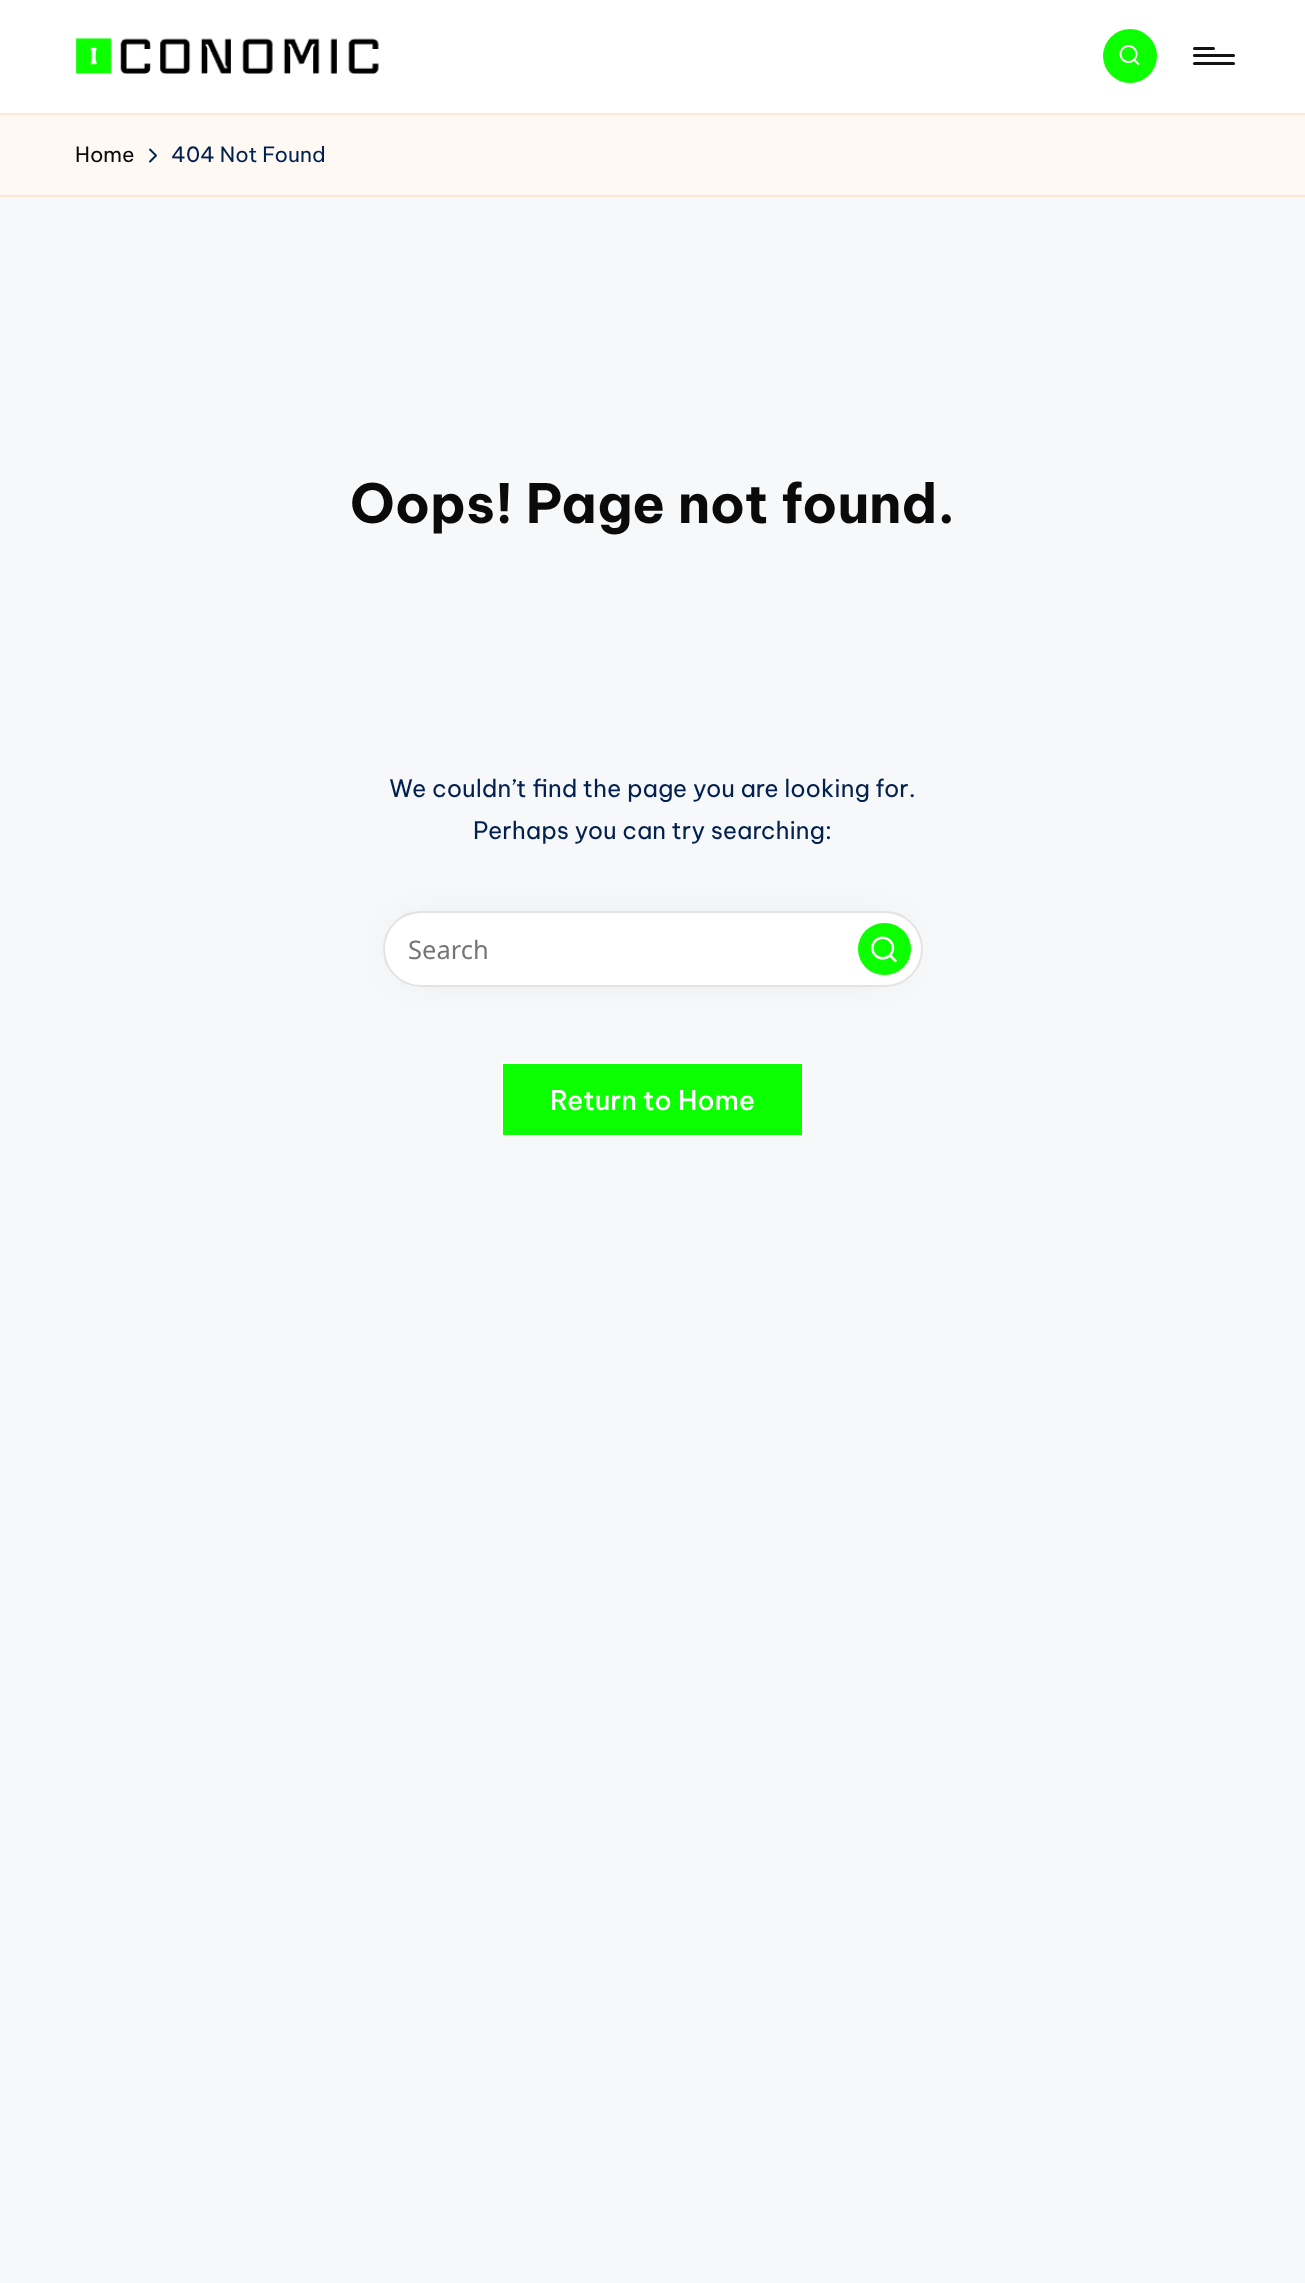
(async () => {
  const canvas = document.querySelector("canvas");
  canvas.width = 1305;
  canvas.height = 2283;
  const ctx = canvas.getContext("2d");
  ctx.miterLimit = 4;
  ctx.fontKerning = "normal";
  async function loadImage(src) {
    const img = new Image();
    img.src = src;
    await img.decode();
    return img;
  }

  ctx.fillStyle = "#f7f8f9";
  ctx.fillRect(0, 0, 1305, 2283);
  ctx.fillStyle = "#ffffff";
  ctx.fillRect(0, 0, 1305, 113);
  ctx.drawImage(await loadImage("img/1.png"), 76, 37, 303, 37);
  ctx.fillStyle = "#0cff00";
  ctx.beginPath();
  ctx.arc(1130, 56, 27, 0, Math.PI * 2);
  ctx.fill();
  ctx.drawImage(await loadImage("img/2.png"), 1119, 45, 21, 21);
  ctx.fillStyle = "#131315";
  ctx.beginPath();
  ctx.roundRect(1193, 54, 42, 3, 1.5);
  ctx.fill();
  ctx.beginPath();
  ctx.roundRect(1193, 47, 22, 3, 1.5);
  ctx.fill();
  ctx.beginPath();
  ctx.roundRect(1193, 62, 42, 3, 1.5);
  ctx.fill();
  for (const [x, y, w, h, color] of [
    [0, 115, 1305, 80, "#fff9f3"],
    [0, 113, 1305, 2, "#ffe7d2"],
    [0, 195, 1305, 2, "#ffe7d2"],
  ]) {
    ctx.fillStyle = color;
    ctx.fillRect(x, y, w, h);
  }
  ctx.drawImage(await loadImage("img/3.png"), 149, 148, 8, 15);
  ctx.fillStyle = "rgba(0, 0, 0, 0.15)";
  ctx.filter = "blur(24px)";
  ctx.beginPath();
  ctx.roundRect(402, 935, 492, 28, 14);
  ctx.fill();
  ctx.filter = "none";
  ctx.fillStyle = "#ffffff";
  ctx.beginPath();
  ctx.roundRect(383, 911, 540, 76, 38);
  ctx.fill();
  ctx.beginPath();
  ctx.roundRect(384, 912, 538, 74, 37);
  ctx.strokeStyle = "rgba(185, 185, 185, 0.4)";
  ctx.lineWidth = 2;
  ctx.stroke();
  ctx.fillStyle = "#0cff00";
  ctx.beginPath();
  ctx.roundRect(858, 923, 53, 52, 26);
  ctx.fill();
  ctx.drawImage(await loadImage("img/4.png"), 871, 936, 26, 27);
  ctx.beginPath();
  ctx.rect(502, 1063, 301, 73);
  ctx.fill();
  ctx.strokeStyle = "#ffffff";
  ctx.stroke();
  ctx.font = "21px Be Vietnam Pro";
  ctx.fillStyle = "#0a0a0a";
  ctx.fillText("Home", 75, 162);
  ctx.fillStyle = "#002050";
  ctx.fillText("404 Not Found", 171, 162);
  ctx.font = "bold 54px Be Vietnam Pro";
  ctx.fillStyle = "#0a0a0a";
  ctx.fillText("Oops! Page not found.", 350, 523);
  ctx.font = "24px Be Vietnam Pro";
  ctx.fillStyle = "#002050";
  ctx.fillText("We couldn’t find the page you are looking for.", 389, 797);
  ctx.fillText("Perhaps you can try searching:", 473, 839);
  ctx.font = "25.5px Noto Sans";
  ctx.fillStyle = "#757575";
  ctx.fillText("Search", 408, 959);
  ctx.font = "500 27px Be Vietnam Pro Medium";
  ctx.fillStyle = "#ffffff";
  ctx.fillText("Return to Home", 550, 1110);
})();
